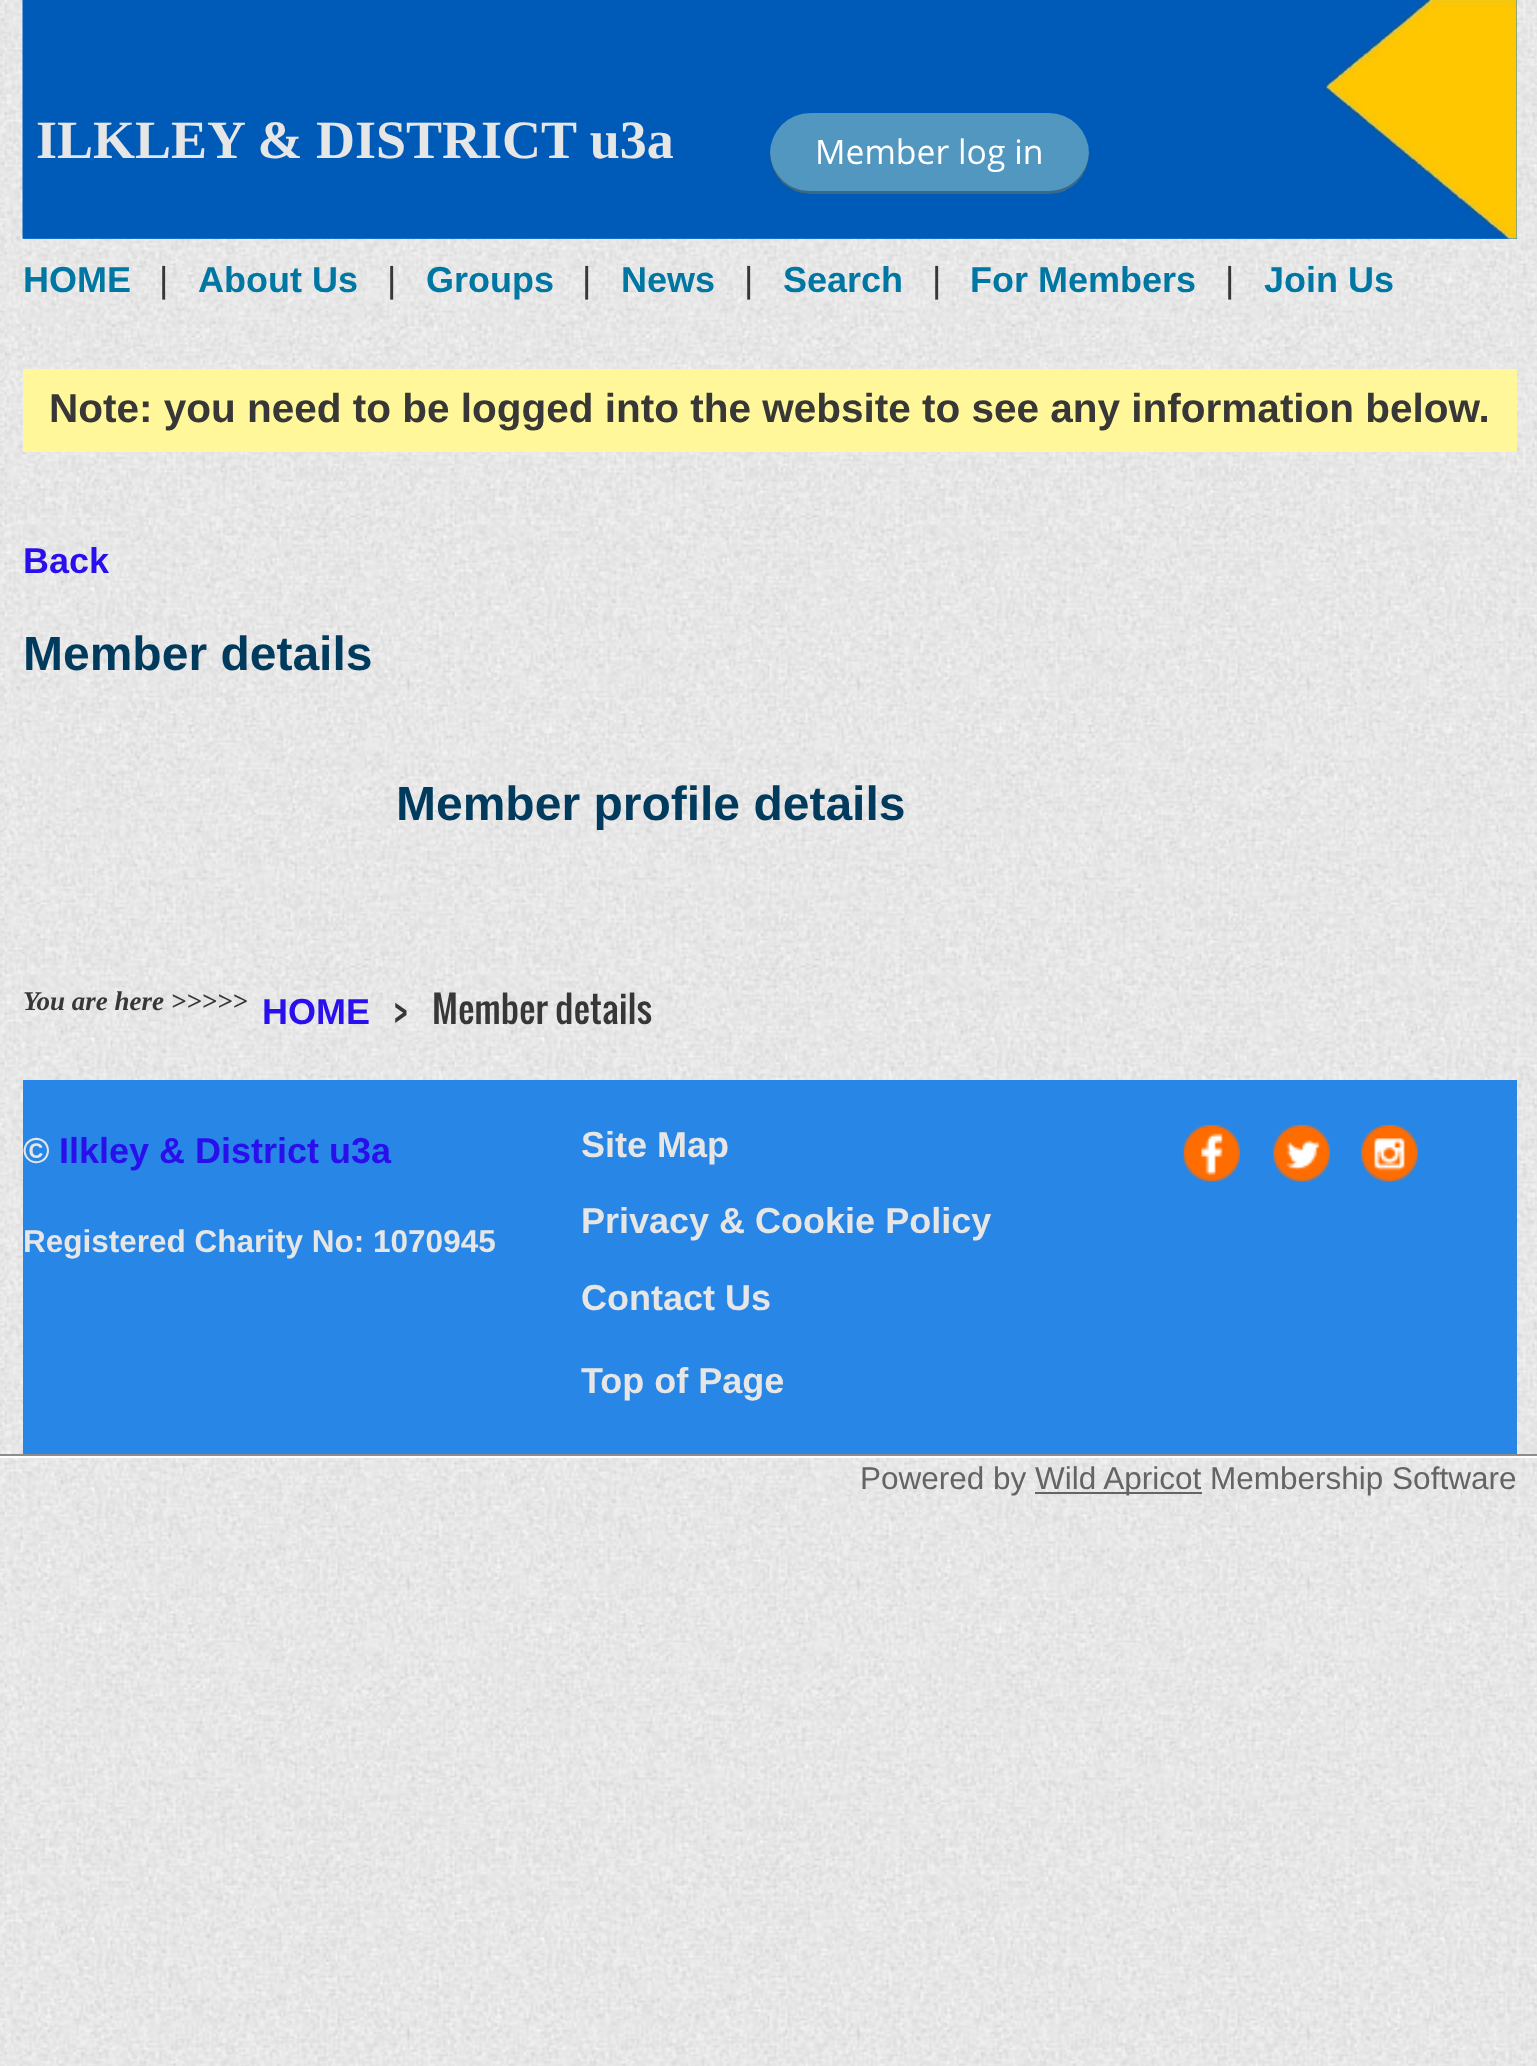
(async () => {
  const canvas = document.querySelector("canvas");
  canvas.width = 1537;
  canvas.height = 2066;
  const ctx = canvas.getContext("2d");
  ctx.miterLimit = 4;
  ctx.fontKerning = "normal";
  async function loadImage(src) {
    const img = new Image();
    img.src = src;
    await img.decode();
    return img;
  }
  let path;

  ctx.fillStyle = "#ffffff";
  ctx.fillRect(0, 0, 1537, 2066);
  ctx.drawImage(await loadImage("img/1.png"), 0, 0, 1537, 2066);
  ctx.fillStyle = "#2886e6";
  ctx.fillRect(23, 0, 1494, 239);
  ctx.drawImage(await loadImage("img/2.png"), 22, 0, 1495, 239);
  ctx.fillStyle = "#5297bf";
  ctx.beginPath();
  ctx.roundRect(770, 113, 319, 81, 40.5);
  ctx.fill();
  ctx.fillStyle = "rgba(0, 0, 0, 0.3)";
  path = new Path2D("M770 152V154C770 176 788 194 810 194H1048C1071 194 1089 176 1089 154V152C1088 174 1071 191 1048 191H810C788 191 771 174 770 152Z");
  ctx.fill(path);
  ctx.fillStyle = "#fff79a";
  ctx.fillRect(23, 369, 1494, 83);
  ctx.fillStyle = "#2886e6";
  ctx.fillRect(23, 1080, 1494, 374);
  ctx.drawImage(await loadImage("img/3.png"), 1183, 1125, 57, 57);
  ctx.drawImage(await loadImage("img/4.png"), 1273, 1125, 57, 57);
  ctx.drawImage(await loadImage("img/5.png"), 1361, 1125, 57, 57);
  for (const [x, y, w, h, color] of [
    [0, 1454, 1537, 2, "#8d8d8d"],
    [0, 1456, 1537, 2, "#ffffff"],
    [1035, 1492, 167, 2, "#646464"],
  ]) {
    ctx.fillStyle = color;
    ctx.fillRect(x, y, w, h);
  }
  ctx.font = "bold 54px Liberation Serif";
  ctx.fillStyle = "#e6e6e6";
  ctx.fillText("ILKLEY & DISTRICT u3a", 36, 158);
  ctx.font = "33.75px Open Sans";
  ctx.fillStyle = "#ffffff";
  ctx.fillText("Member log in", 815, 164);
  ctx.font = "bold 36px Liberation Sans";
  ctx.fillStyle = "#0076a3";
  ctx.fillText("HOME", 23, 292);
  ctx.font = "36px Liberation Sans";
  ctx.fillStyle = "#373737";
  ctx.fillText("|", 159, 292);
  ctx.font = "bold 36px Liberation Sans";
  ctx.fillStyle = "#0076a3";
  ctx.fillText("About Us", 198, 292);
  ctx.font = "36px Liberation Sans";
  ctx.fillStyle = "#373737";
  ctx.fillText("|", 387, 292);
  ctx.font = "bold 36px Liberation Sans";
  ctx.fillStyle = "#0076a3";
  ctx.fillText("Groups", 426, 292);
  ctx.font = "36px Liberation Sans";
  ctx.fillStyle = "#373737";
  ctx.fillText("|", 582, 292);
  ctx.font = "bold 36px Liberation Sans";
  ctx.fillStyle = "#0076a3";
  ctx.fillText("News", 621, 292);
  ctx.font = "36px Liberation Sans";
  ctx.fillStyle = "#373737";
  ctx.fillText("|", 744, 292);
  ctx.font = "bold 36px Liberation Sans";
  ctx.fillStyle = "#0076a3";
  ctx.fillText("Search", 783, 292);
  ctx.font = "36px Liberation Sans";
  ctx.fillStyle = "#373737";
  ctx.fillText("|", 932, 292);
  ctx.font = "bold 36px Liberation Sans";
  ctx.fillStyle = "#0076a3";
  ctx.fillText("For Members", 970, 292);
  ctx.font = "36px Liberation Sans";
  ctx.fillStyle = "#373737";
  ctx.fillText("|", 1225, 292);
  ctx.font = "bold 36px Liberation Sans";
  ctx.fillStyle = "#0076a3";
  ctx.fillText("Join Us", 1264, 292);
  ctx.font = "bold 40.5px Liberation Sans";
  ctx.fillStyle = "#373737";
  ctx.fillText("Note: you need to be logged into the website to see any information below.", 49, 422);
  ctx.font = "bold 36px Liberation Sans";
  ctx.fillStyle = "#290fec";
  ctx.fillText("Back", 23, 573);
  ctx.font = "bold 48px Liberation Sans";
  ctx.fillStyle = "#003a5c";
  ctx.fillText("Member details", 23, 670);
  ctx.fillText("Member profile details", 396, 820);
  ctx.font = "italic bold 27px Liberation Serif";
  ctx.fillStyle = "#373737";
  ctx.fillText("You are here >>>>>", 23, 1010);
  ctx.font = "bold 36px Liberation Sans";
  ctx.fillStyle = "#290fec";
  ctx.fillText("HOME", 262, 1024);
  ctx.font = "36px Oswald";
  ctx.fillStyle = "#373737";
  ctx.fillText(">", 393, 1024);
  ctx.fillText("Member details", 432, 1024);
  ctx.font = "bold 36px Liberation Sans";
  ctx.fillStyle = "#e6e6e6";
  ctx.fillText("©", 23, 1163);
  ctx.fillStyle = "#290fec";
  ctx.fillText("Ilkley & District u3a", 59, 1163);
  ctx.font = "bold 31.5px Liberation Sans";
  ctx.fillStyle = "#e6e6e6";
  ctx.fillText("Registered Charity No: 1070945", 23, 1252);
  ctx.font = "bold 36px Liberation Sans";
  for (const [text, x, y] of [
    ["Site Map", 581, 1157],
    ["Privacy & Cookie Policy", 581, 1233],
    ["Contact Us", 581, 1310],
    ["Top of Page", 581, 1393],
  ]) {
    ctx.fillText(text, x, y);
  }
  ctx.font = "31.5px Liberation Sans";
  ctx.fillStyle = "#646464";
  ctx.fillText("Powered by", 860, 1489);
  ctx.fillText("Wild Apricot Membership Software", 1035, 1489);
})();
